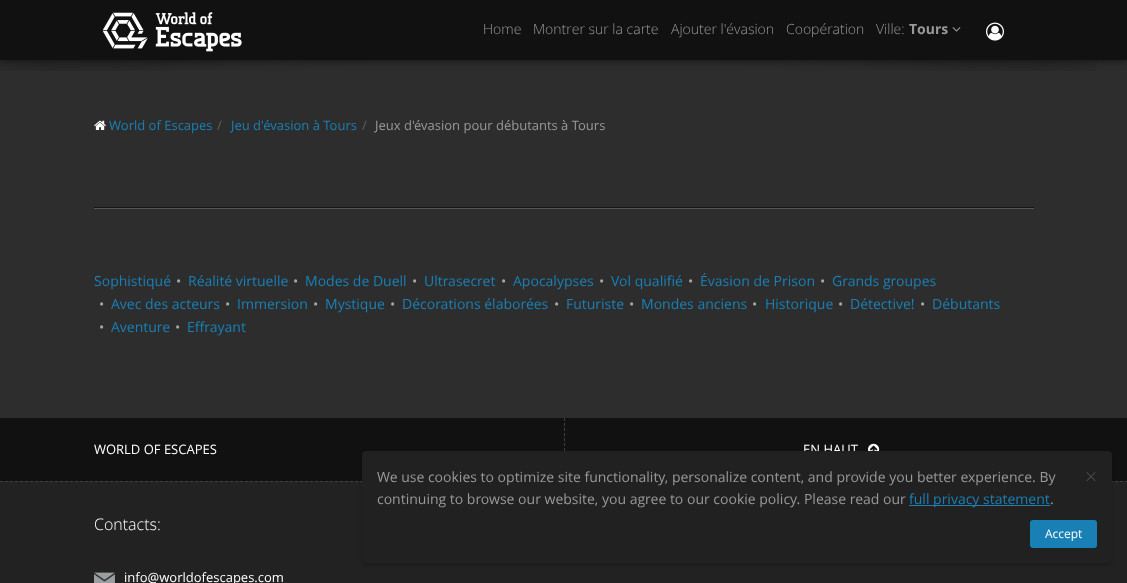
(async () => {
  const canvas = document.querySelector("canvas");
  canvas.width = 1127;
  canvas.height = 583;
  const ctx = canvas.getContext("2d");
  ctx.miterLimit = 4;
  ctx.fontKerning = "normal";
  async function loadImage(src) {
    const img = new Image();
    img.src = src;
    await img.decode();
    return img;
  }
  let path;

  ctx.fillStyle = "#2d2d2d";
  ctx.fillRect(0, 0, 1127, 583);
  ctx.drawImage(await loadImage("img/4.png"), 0, 60, 1097, 11);
  ctx.fillStyle = "#111111";
  ctx.filter = "blur(4px)";
  ctx.beginPath();
  ctx.rect(0, 0, 1127, 60);
  ctx.fill();
  ctx.filter = "none";
  ctx.fillRect(0, 0, 1127, 60);
  ctx.drawImage(await loadImage("img/1.png"), 102, 12, 140, 40);
  ctx.drawImage(await loadImage("img/2.png"), 952, 27, 9, 5);
  ctx.drawImage(await loadImage("img/3.png"), 986, 22, 18, 19);
  ctx.drawImage(await loadImage("img/5.png"), 94, 120, 12, 10);
  for (const [x, y, w, h, color] of [
    [94, 207, 940, 1, "#161616"],
    [94, 208, 940, 1, "#555555"],
    [0, 418, 1127, 63, "#111111"],
  ]) {
    ctx.fillStyle = color;
    ctx.fillRect(x, y, w, h);
  }
  path = new Path2D("M564.5 418V481");
  ctx.strokeStyle = "#403e44";
  ctx.setLineDash([3, 2]);
  ctx.stroke(path);
  ctx.drawImage(await loadImage("img/6.png"), 868, 443, 12, 8);
  ctx.fillStyle = "#222222";
  ctx.fillRect(0, 481, 1127, 102);
  path = new Path2D("M0 481.5H1127");
  ctx.stroke(path);
  ctx.drawImage(await loadImage("img/7.png"), 94, 572, 21, 11);
  ctx.fillStyle = "rgba(0, 0, 0, 0.2)";
  ctx.filter = "blur(1.5px)";
  ctx.beginPath();
  ctx.roundRect(362, 453, 750, 112, 4);
  ctx.fill();
  ctx.filter = "none";
  ctx.font = "300 14px Open Sans";
  ctx.fillStyle = "#999999";
  for (const [text, x, y] of [
    ["Home", 483, 34],
    ["Montrer sur la carte", 533, 34],
    ["Ajouter l'évasion", 671, 34],
    ["Coopération", 786, 34],
    ["Ville:", 876, 34],
  ]) {
    ctx.fillText(text, x, y);
  }
  ctx.font = "bold 14px Open Sans";
  ctx.fillText("Tours", 909, 34);
  ctx.font = "13px Open Sans";
  ctx.fillStyle = "#1980b6";
  ctx.fillText("World of Escapes", 109, 130);
  ctx.fillStyle = "#5e5e5e";
  ctx.fillText("/", 217, 130);
  ctx.fillStyle = "#1980b6";
  ctx.fillText("Jeu d'évasion à Tours", 231, 130);
  ctx.fillStyle = "#5e5e5e";
  ctx.fillText("/", 362, 130);
  ctx.fillStyle = "#999999";
  ctx.fillText("Jeux d'évasion pour débutants à Tours", 375, 130);
  ctx.font = "14px Open Sans";
  ctx.fillStyle = "#1980b6";
  ctx.fillText("Sophistiqué", 94, 286);
  ctx.fillStyle = "#a4a6a8";
  ctx.fillText("•", 176, 286);
  ctx.fillStyle = "#1980b6";
  ctx.fillText("Réalité virtuelle", 188, 286);
  ctx.fillStyle = "#a4a6a8";
  ctx.fillText("•", 293, 286);
  ctx.fillStyle = "#1980b6";
  ctx.fillText("Modes de Duell", 305, 286);
  ctx.fillStyle = "#a4a6a8";
  ctx.fillText("•", 412, 286);
  ctx.fillStyle = "#1980b6";
  ctx.fillText("Ultrasecret", 424, 286);
  ctx.fillStyle = "#a4a6a8";
  ctx.fillText("•", 501, 286);
  ctx.fillStyle = "#1980b6";
  ctx.fillText("Apocalypses", 513, 286);
  ctx.fillStyle = "#a4a6a8";
  ctx.fillText("•", 599, 286);
  ctx.fillStyle = "#1980b6";
  ctx.fillText("Vol qualifié", 611, 286);
  ctx.fillStyle = "#a4a6a8";
  ctx.fillText("•", 688, 286);
  ctx.fillStyle = "#1980b6";
  ctx.fillText("Évasion de Prison", 700, 286);
  ctx.fillStyle = "#a4a6a8";
  ctx.fillText("•", 820, 286);
  ctx.fillStyle = "#1980b6";
  ctx.fillText("Grands groupes", 832, 286);
  ctx.fillStyle = "#a4a6a8";
  ctx.fillText("•", 99, 309);
  ctx.fillStyle = "#1980b6";
  ctx.fillText("Avec des acteurs", 111, 309);
  ctx.fillStyle = "#a4a6a8";
  ctx.fillText("•", 225, 309);
  ctx.fillStyle = "#1980b6";
  ctx.fillText("Immersion", 237, 309);
  ctx.fillStyle = "#a4a6a8";
  ctx.fillText("•", 313, 309);
  ctx.fillStyle = "#1980b6";
  ctx.fillText("Mystique", 325, 309);
  ctx.fillStyle = "#a4a6a8";
  ctx.fillText("•", 390, 309);
  ctx.fillStyle = "#1980b6";
  ctx.fillText("Décorations élaborées", 402, 309);
  ctx.fillStyle = "#a4a6a8";
  ctx.fillText("•", 554, 309);
  ctx.fillStyle = "#1980b6";
  ctx.fillText("Futuriste", 566, 309);
  ctx.fillStyle = "#a4a6a8";
  ctx.fillText("•", 629, 309);
  ctx.fillStyle = "#1980b6";
  ctx.fillText("Mondes anciens", 641, 309);
  ctx.fillStyle = "#a4a6a8";
  ctx.fillText("•", 752, 309);
  ctx.fillStyle = "#1980b6";
  ctx.fillText("Historique", 765, 309);
  ctx.fillStyle = "#a4a6a8";
  ctx.fillText("•", 838, 309);
  ctx.fillStyle = "#1980b6";
  ctx.fillText("Détective!", 850, 309);
  ctx.fillStyle = "#a4a6a8";
  ctx.fillText("•", 920, 309);
  ctx.fillStyle = "#1980b6";
  ctx.fillText("Débutants", 932, 309);
  ctx.fillStyle = "#a4a6a8";
  ctx.fillText("•", 99, 332);
  ctx.fillStyle = "#1980b6";
  ctx.fillText("Aventure", 111, 332);
  ctx.fillStyle = "#a4a6a8";
  ctx.fillText("•", 175, 332);
  ctx.fillStyle = "#1980b6";
  ctx.fillText("Effrayant", 187, 332);
  ctx.font = "13px Open Sans";
  ctx.fillStyle = "#ffffff";
  ctx.fillText("WORLD OF ESCAPES", 94, 454);
  ctx.fillText("EN HAUT", 803, 454);
  ctx.font = "300 16px Open Sans";
  ctx.fillText("Contacts:", 94, 530);
  ctx.font = "13px Open Sans";
  ctx.fillText("info@worldofescapes.com", 124, 582);
  ctx.fillStyle = "#212121";
  ctx.beginPath();
  ctx.roundRect(362, 451, 750, 112, 4);
  ctx.fill();
  ctx.font = "14px Open Sans";
  ctx.fillStyle = "#999999";
  ctx.fillText("We use cookies to optimize site functionality, personalize content, and provide you better experience. By", 377, 482);
  ctx.fillText("continuing to browse our website, you agree to our cookie policy. Please read our", 377, 504);
  ctx.fillStyle = "#1980b6";
  ctx.fillRect(909, 505, 141, 1);
  ctx.fillText("full privacy statement", 909, 504);
  ctx.fillStyle = "#999999";
  ctx.fillText(".", 1050, 504);
  ctx.font = "300 21px Open Sans";
  ctx.fillStyle = "#4d4d4d";
  ctx.fillText("×", 1085, 484);
  ctx.fillStyle = "#1980b6";
  ctx.beginPath();
  ctx.roundRect(1030, 520, 67, 28, 3);
  ctx.fill();
  ctx.font = "12px Open Sans";
  ctx.fillStyle = "#ffffff";
  ctx.fillText("Accept", 1045, 538);
})();
